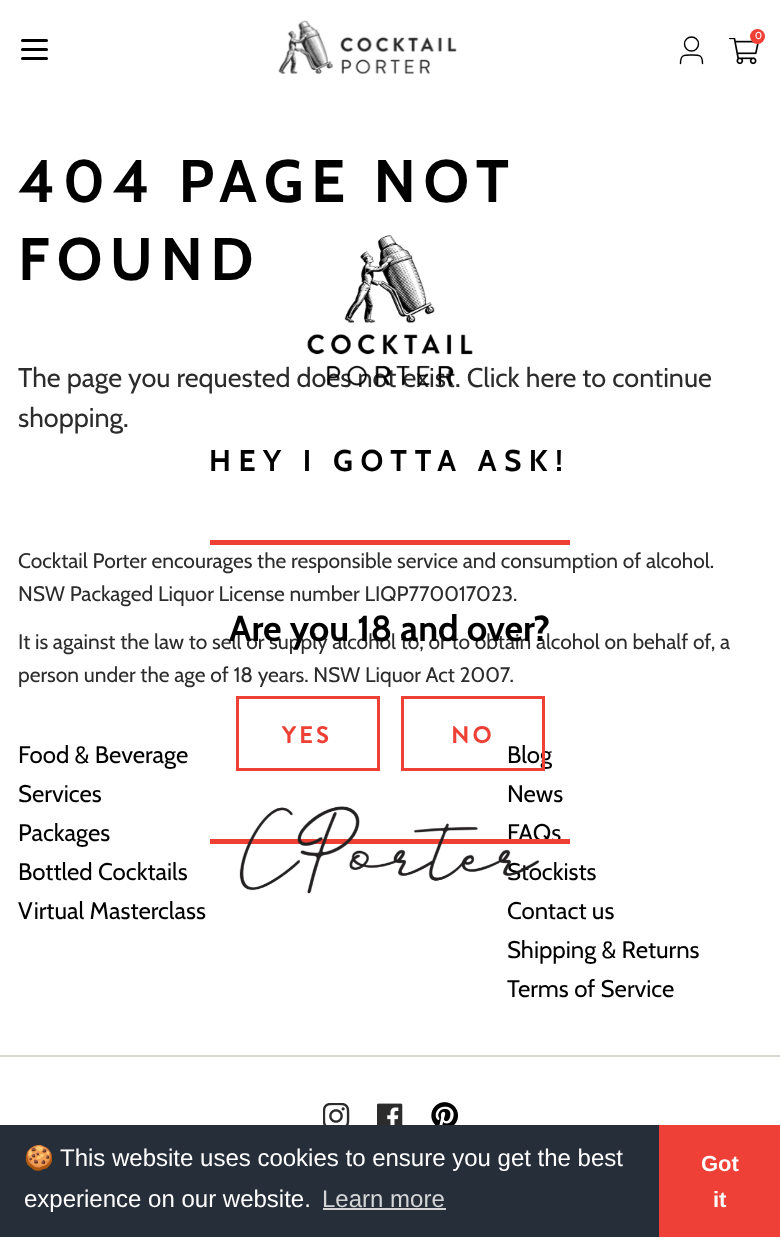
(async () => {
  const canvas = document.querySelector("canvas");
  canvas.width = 780;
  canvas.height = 1237;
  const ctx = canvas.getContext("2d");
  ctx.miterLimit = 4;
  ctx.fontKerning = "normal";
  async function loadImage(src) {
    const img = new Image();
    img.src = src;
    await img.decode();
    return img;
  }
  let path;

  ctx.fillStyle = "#ffffff";
  ctx.fillRect(0, 0, 780, 1237);
  ctx.drawImage(await loadImage("img/1.png"), 278, 20, 179, 54);
  path = new Path2D("M702.5 63.5C702.5 54.5 699 55 691.5 55C684 55 680.5 54.5 680.5 63.5");
  ctx.strokeStyle = "#000000";
  ctx.lineWidth = 1.4;
  ctx.lineCap = "round";
  ctx.lineJoin = "round";
  ctx.stroke(path);
  ctx.beginPath();
  ctx.arc(691.5, 44, 7, 0, Math.PI * 2);
  ctx.stroke();
  ctx.drawImage(await loadImage("img/2.png"), 729, 38, 30, 27);
  ctx.fillStyle = "#f04036";
  ctx.beginPath();
  ctx.arc(757.5, 36.5, 7.5, 0, Math.PI * 2);
  ctx.fill();
  ctx.fillStyle = "#000000";
  ctx.beginPath();
  ctx.roundRect(21, 39, 27, 3, 1.5);
  ctx.fill();
  ctx.beginPath();
  ctx.roundRect(21, 48, 27, 3, 1.5);
  ctx.fill();
  ctx.beginPath();
  ctx.roundRect(21, 57, 27, 3, 1.5);
  ctx.fill();
  ctx.fillStyle = "#ef4036";
  ctx.fillRect(210, 540, 360, 5);
  ctx.strokeStyle = "#ef4036";
  ctx.lineWidth = 3;
  ctx.lineJoin = "miter";
  ctx.strokeRect(237.5, 697.5, 141, 72);
  ctx.fillStyle = "#dad8cf";
  ctx.fillRect(0, 1055, 780, 2);
  ctx.drawImage(await loadImage("img/5.png"), 323, 1103, 27, 22);
  ctx.drawImage(await loadImage("img/6.png"), 377, 1103, 26, 22);
  ctx.drawImage(await loadImage("img/7.png"), 431, 1102, 27, 23);
  for (const [x, y, w, h, color] of [
    [0, 1125, 659, 112, "#252e39"],
    [323, 1208, 123, 2, "#d3d5d7"],
    [659, 1125, 121, 112, "#ee4036"],
  ]) {
    ctx.fillStyle = color;
    ctx.fillRect(x, y, w, h);
  }
  ctx.font = "10px Cabin";
  ctx.fillStyle = "#ffffff";
  ctx.fillText("0", 755, 39);
  ctx.letterSpacing = "7.5px";
  ctx.font = "bold 60px Cabin";
  ctx.fillStyle = "#000000";
  ctx.fillText("404 PAGE NOT", 18, 202);
  ctx.fillText("FOUND", 18, 280);
  ctx.letterSpacing = "0px";
  ctx.font = "27px Cabin";
  ctx.fillStyle = "#2c2c2c";
  ctx.fillText("The page you requested does not exist. Click here to continue", 18, 387);
  ctx.fillText("shopping.", 18, 427);
  ctx.drawImage(await loadImage("img/3.png"), 307, 235, 166, 151);
  ctx.letterSpacing = "7.5px";
  ctx.font = "bold 30px Cabin";
  ctx.fillStyle = "#000000";
  ctx.fillText("HEY I GOTTA ASK!", 209, 471);
  ctx.letterSpacing = "3px";
  ctx.font = "bold 24px Brandon Grotesque";
  ctx.fillStyle = "#ef4036";
  ctx.fillText("YES", 282, 743);
  ctx.letterSpacing = "0px";
  ctx.font = "21px Cabin";
  ctx.fillStyle = "#2c2c2c";
  for (const [text, x, y] of [
    ["Cocktail Porter encourages the responsible service and consumption of alcohol.", 18, 568],
    ["NSW Packaged Liquor License number LIQP770017023.", 18, 601],
    ["It is against the law to sell or supply alcohol to, or to obtain alcohol on behalf of, a", 18, 649],
  ]) {
    ctx.fillText(text, x, y);
  }
  ctx.font = "bold 36px Cabin";
  ctx.fillStyle = "#000000";
  ctx.fillText("Are you 18 and over?", 229, 641);
  ctx.font = "21px Cabin";
  ctx.fillStyle = "#2c2c2c";
  ctx.fillText("person under the age of 18 years. NSW Liquor Act 2007.", 18, 682);
  ctx.font = "24px Cabin";
  ctx.fillStyle = "#000000";
  for (const [text, x, y] of [
    ["Food & Beverage", 18, 763],
    ["Services", 18, 802],
    ["Packages", 18, 841],
    ["Bottled Cocktails", 18, 880],
    ["Virtual Masterclass", 18, 919],
    ["Blog", 507, 763],
  ]) {
    ctx.fillText(text, x, y);
  }
  ctx.strokeRect(402.5, 697.5, 141, 72);
  ctx.letterSpacing = "3px";
  ctx.font = "bold 24px Brandon Grotesque";
  ctx.fillStyle = "#ef4036";
  ctx.fillText("NO", 451, 743);
  ctx.letterSpacing = "0px";
  ctx.font = "24px Cabin";
  ctx.fillStyle = "#000000";
  ctx.fillText("News", 507, 802);
  ctx.fillText("FAQs", 507, 841);
  ctx.fillStyle = "#ef4036";
  ctx.fillRect(210, 839, 360, 5);
  ctx.fillStyle = "#000000";
  ctx.fillText("Stockists", 507, 880);
  ctx.drawImage(await loadImage("img/4.png"), 239, 806, 301, 88);
  for (const [text, x, y] of [
    ["Contact us", 507, 919],
    ["Shipping & Returns", 507, 958],
    ["Terms of Service", 507, 997],
  ]) {
    ctx.fillText(text, x, y);
  }
  ctx.font = "24px Noto Color Emoji";
  ctx.fillStyle = "#ffffff";
  ctx.fillText("🍪", 24, 1166);
  ctx.font = "24px Liberation Sans";
  ctx.fillText("This website uses cookies to ensure you get the best", 60, 1166);
  ctx.fillText("experience on our website.", 24, 1207);
  ctx.fillStyle = "#d3d5d7";
  ctx.fillText("Learn more", 322, 1207);
  ctx.font = "bold 22px Liberation Sans";
  ctx.fillStyle = "#ffffff";
  ctx.fillText("Got", 701, 1171);
  ctx.fillText("it", 713, 1207);
})();
